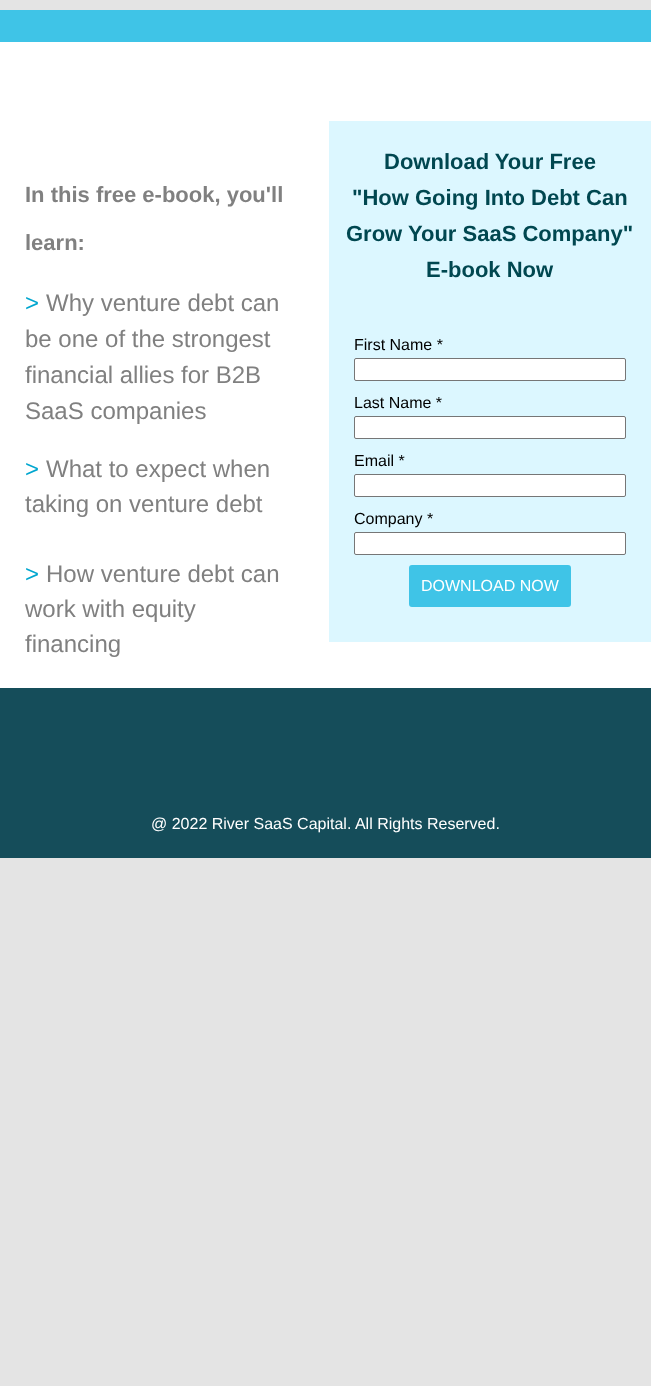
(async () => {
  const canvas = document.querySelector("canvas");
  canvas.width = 651;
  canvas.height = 1386;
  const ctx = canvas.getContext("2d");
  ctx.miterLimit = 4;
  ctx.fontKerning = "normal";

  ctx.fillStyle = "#e4e4e4";
  ctx.fillRect(0, 0, 651, 1386);
  for (const [x, y, w, h, color] of [
    [0, 42, 651, 646, "#ffffff"],
    [0, 10, 651, 32, "#3fc4e7"],
    [329, 121, 322, 521, "#dcf7ff"],
  ]) {
    ctx.fillStyle = color;
    ctx.fillRect(x, y, w, h);
  }
  ctx.fillStyle = "#ffffff";
  ctx.beginPath();
  ctx.roundRect(354.5, 358.5, 271, 22, 1.5);
  ctx.fill();
  ctx.strokeStyle = "#767676";
  ctx.stroke();
  ctx.beginPath();
  ctx.roundRect(354.5, 416.5, 271, 22, 1.5);
  ctx.fill();
  ctx.stroke();
  ctx.beginPath();
  ctx.roundRect(354.5, 474.5, 271, 22, 1.5);
  ctx.fill();
  ctx.stroke();
  ctx.beginPath();
  ctx.roundRect(354.5, 532.5, 271, 22, 1.5);
  ctx.fill();
  ctx.stroke();
  ctx.fillStyle = "#3fc4e7";
  ctx.beginPath();
  ctx.roundRect(410, 566, 160, 40, 2);
  ctx.fill();
  ctx.strokeStyle = "#3fc4e7";
  ctx.lineWidth = 2;
  ctx.stroke();
  ctx.fillStyle = "#154d5a";
  ctx.fillRect(0, 688, 651, 170);
  ctx.font = "bold 22px Liberation Sans";
  ctx.fillStyle = "#808080";
  ctx.fillText("In this free e-book, you'll", 25, 202);
  ctx.fillText("learn:", 25, 250);
  ctx.font = "24px Liberation Sans";
  ctx.fillStyle = "#00a6cf";
  ctx.fillText(">", 25, 311);
  ctx.fillStyle = "#808080";
  for (const [text, x, y] of [
    ["Why venture debt can", 46, 311],
    ["be one of the strongest", 25, 347],
    ["financial allies for B2B", 25, 383],
    ["SaaS companies", 25, 419],
  ]) {
    ctx.fillText(text, x, y);
  }
  ctx.fillStyle = "#00a6cf";
  ctx.fillText(">", 25, 477);
  ctx.fillStyle = "#808080";
  ctx.fillText("What to expect when", 46, 477);
  ctx.fillText("taking on venture debt", 25, 512);
  ctx.fillStyle = "#00a6cf";
  ctx.fillText(">", 25, 582);
  ctx.fillStyle = "#808080";
  for (const [text, x, y] of [
    ["How venture debt can", 46, 582],
    ["work with equity", 25, 617],
    ["financing", 25, 652],
  ]) {
    ctx.fillText(text, x, y);
  }
  ctx.font = "bold 22px Liberation Sans";
  ctx.fillStyle = "#004750";
  for (const [text, x, y] of [
    ["Download Your Free", 384, 169],
    ["\"How Going Into Debt Can", 352, 205],
    ["Grow Your SaaS Company\"", 346, 241],
    ["E-book Now", 426, 277],
  ]) {
    ctx.fillText(text, x, y);
  }
  ctx.font = "16px Liberation Sans";
  ctx.fillStyle = "#000000";
  for (const [text, x, y] of [
    ["First Name *", 354, 350],
    ["Last Name *", 354, 408],
    ["Email *", 354, 466],
    ["Company *", 354, 524],
  ]) {
    ctx.fillText(text, x, y);
  }
  ctx.fillStyle = "#ffffff";
  ctx.fillText("DOWNLOAD NOW", 421, 591);
  ctx.fillText("@ 2022 River SaaS Capital. All Rights Reserved.", 151, 829);
})();
